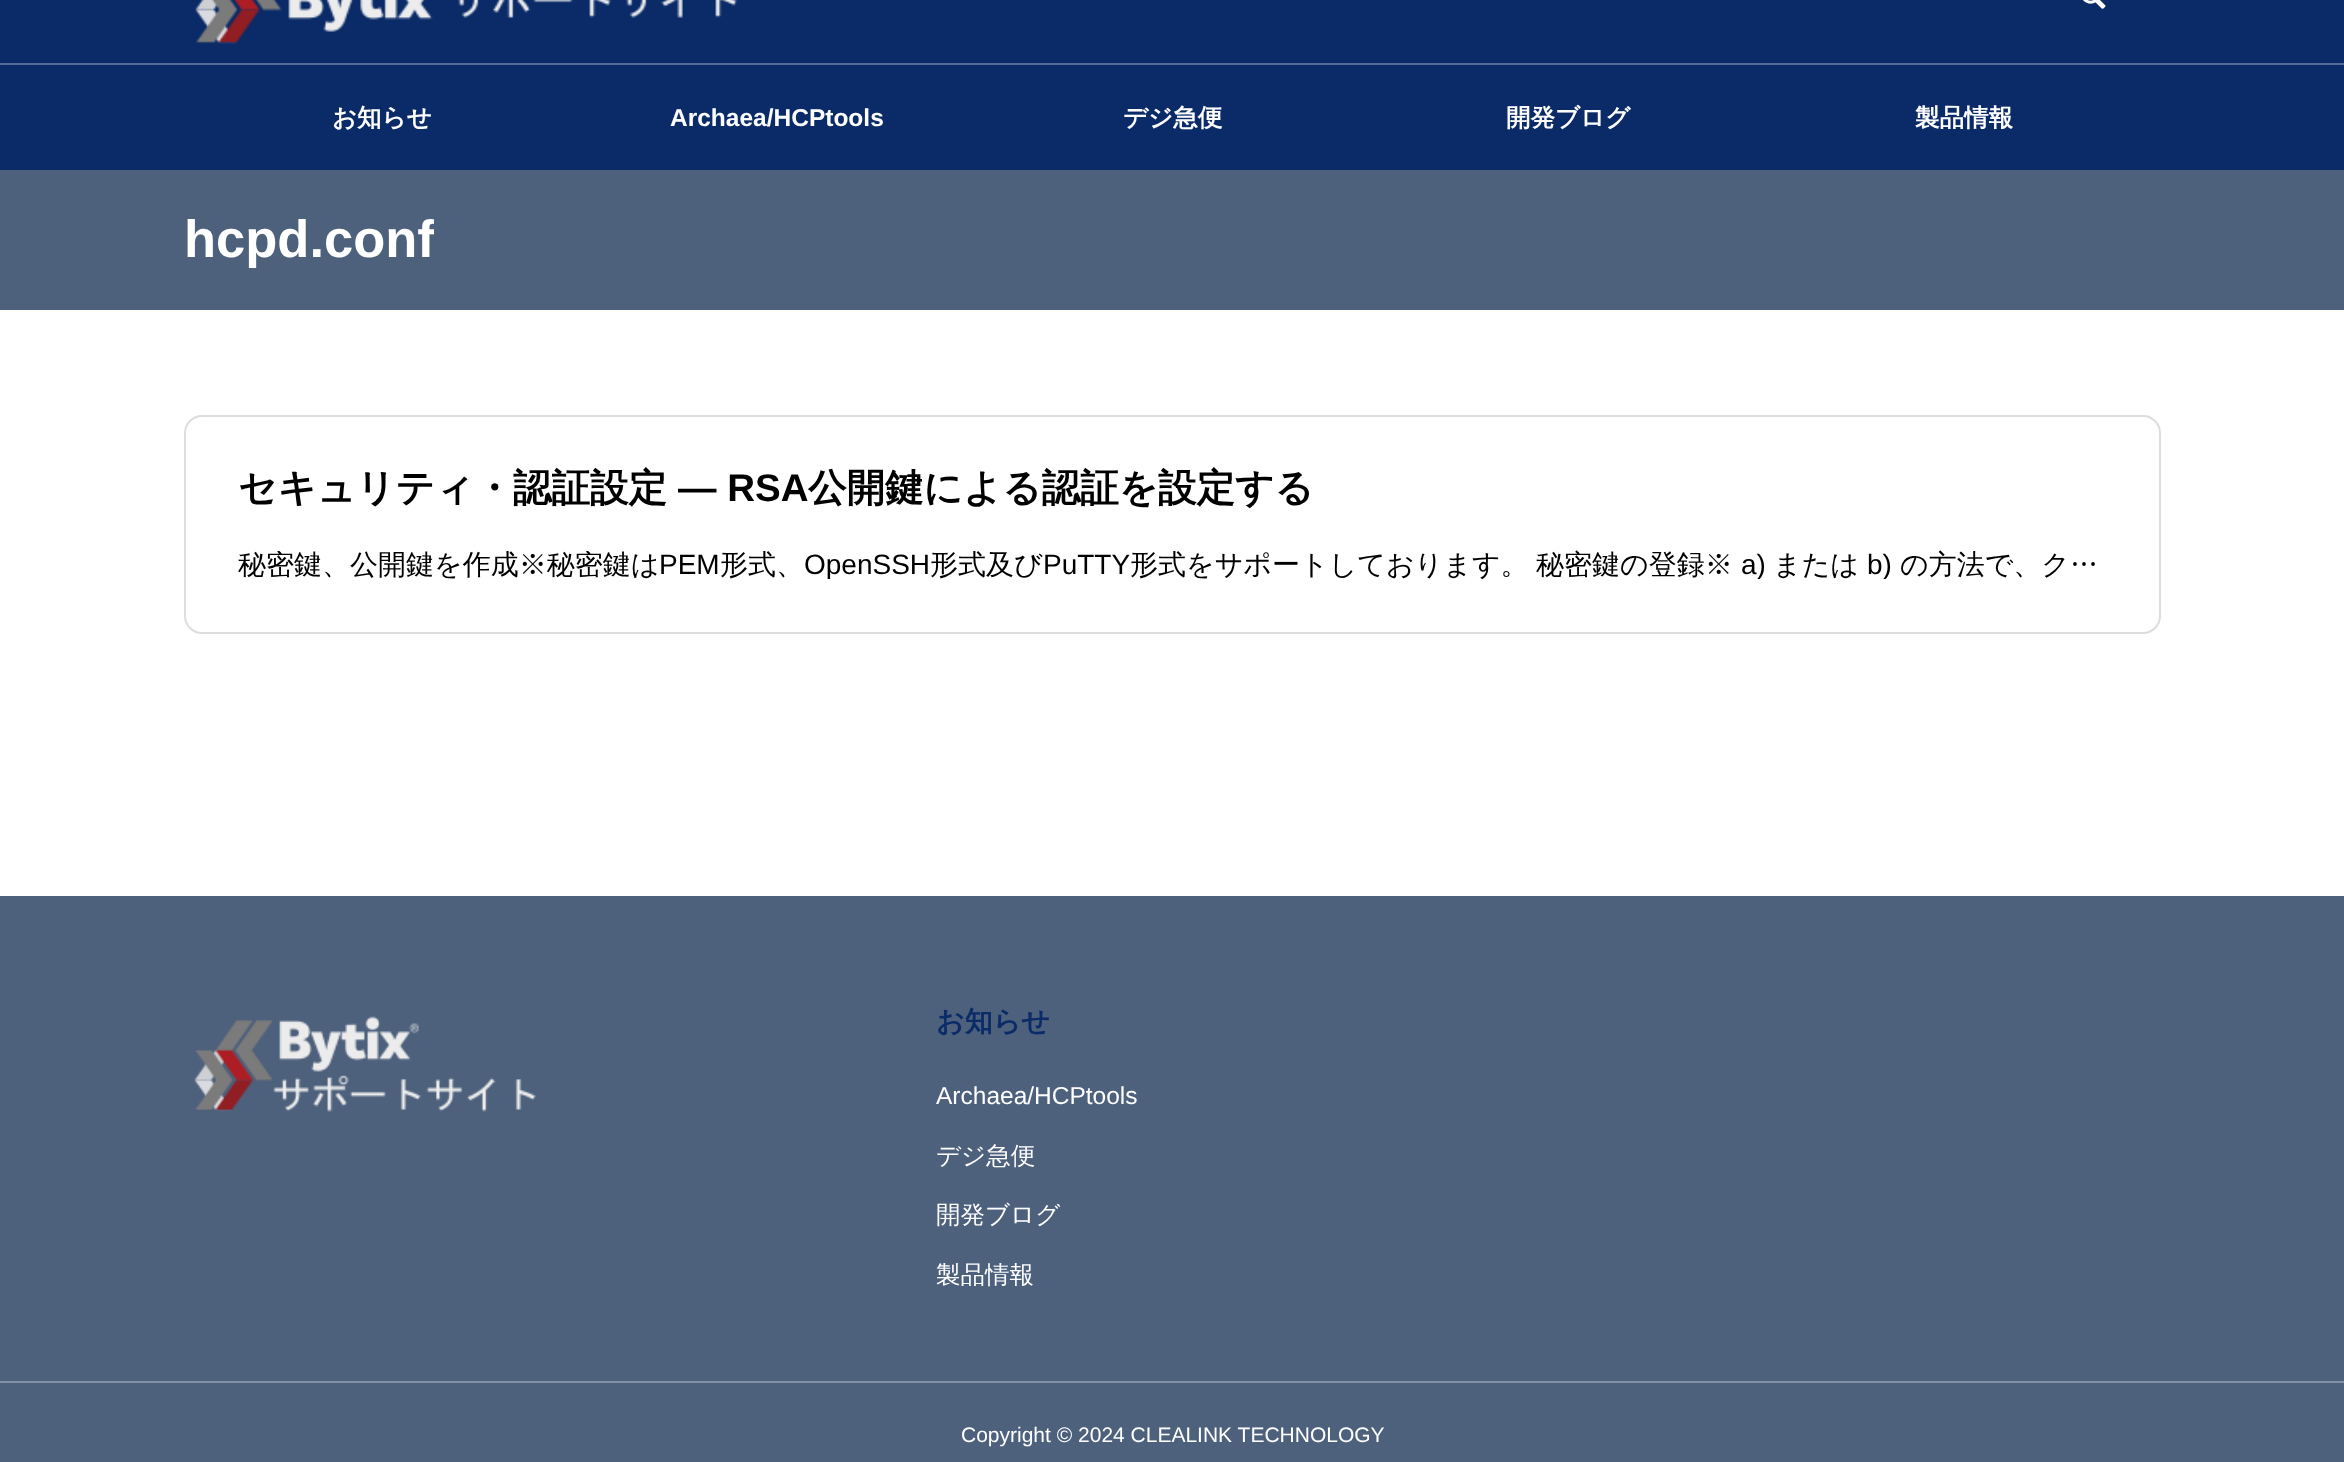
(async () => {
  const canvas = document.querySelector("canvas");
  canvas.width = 2344;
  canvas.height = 1462;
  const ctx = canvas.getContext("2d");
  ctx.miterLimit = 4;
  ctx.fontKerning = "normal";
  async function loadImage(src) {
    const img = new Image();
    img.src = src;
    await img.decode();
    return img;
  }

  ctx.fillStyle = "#ffffff";
  ctx.fillRect(0, 0, 2344, 1462);
  ctx.fillStyle = "#0a2b68";
  ctx.fillRect(0, 0, 2344, 170);
  ctx.drawImage(await loadImage("img/1.png"), 195, 0, 543, 44);
  ctx.drawImage(await loadImage("img/2.png"), 2083, 0, 23, 9);
  ctx.fillStyle = "#546b95";
  ctx.fillRect(0, 63, 2344, 2);
  ctx.fillStyle = "#4d607c";
  ctx.fillRect(0, 170, 2344, 140);
  ctx.beginPath();
  ctx.roundRect(185, 416, 1975, 217, 17);
  ctx.strokeStyle = "#dddddd";
  ctx.lineWidth = 2;
  ctx.stroke();
  ctx.fillRect(0, 896, 2344, 566);
  ctx.drawImage(await loadImage("img/3.png"), 194, 1016, 342, 96);
  ctx.fillStyle = "#8290a3";
  ctx.fillRect(0, 1381, 2344, 2);
  ctx.font = "bold 24.5px WenQuanYi Zen Hei";
  ctx.fillStyle = "#ffffff";
  ctx.fillText("お知らせ", 332, 126);
  ctx.font = "bold 24.5px Liberation Sans";
  ctx.fillText("Archaea/HCPtools", 670, 126);
  ctx.font = "bold 24.5px WenQuanYi Zen Hei";
  for (const [text, x, y] of [
    ["デジ急便", 1123, 126],
    ["開発ブログ", 1506, 126],
    ["製品情報", 1915, 126],
  ]) {
    ctx.fillText(text, x, y);
  }
  ctx.save();
  ctx.beginPath();
  ctx.rect(184, 170, 250, 140);
  ctx.clip();
  ctx.font = "bold 52.5px Liberation Sans";
  ctx.fillText("hcpd.conf", 184, 257);
  ctx.restore();
  ctx.font = "bold 38.5px WenQuanYi Zen Hei";
  ctx.fillStyle = "#000000";
  ctx.fillText("セキュリティ・認証設定", 238, 501);
  ctx.font = "bold 38.5px Liberation Sans";
  ctx.fillText("― RSA", 678, 501);
  ctx.font = "bold 38.5px WenQuanYi Zen Hei";
  ctx.fillText("公開鍵による認証を設定する", 808, 501);
  ctx.save();
  ctx.beginPath();
  ctx.rect(238, 551, 1869, 28);
  ctx.clip();
  ctx.font = "500 28px WenQuanYi Zen Hei";
  ctx.fillText("秘密鍵、公開鍵を作成※秘密鍵は", 238, 574);
  ctx.restore();
  ctx.font = "28px Liberation Sans";
  ctx.fillText("PEM", 659, 574);
  ctx.font = "500 28px WenQuanYi Zen Hei";
  ctx.fillText("形式、", 720, 574);
  ctx.save();
  ctx.beginPath();
  ctx.rect(238, 551, 1869, 28);
  ctx.clip();
  ctx.font = "28px Liberation Sans";
  ctx.fillText("OpenSSH", 804, 574);
  ctx.restore();
  ctx.fillText("形式及び", 930, 574);
  ctx.font = "28px Liberation Sans";
  ctx.fillText("PuTTY", 1043, 574);
  ctx.font = "500 28px WenQuanYi Zen Hei";
  ctx.fillText("形式をサポートしております。", 1130, 574);
  ctx.fillText("秘密鍵の登録※", 1536, 574);
  ctx.save();
  ctx.beginPath();
  ctx.rect(238, 551, 1869, 28);
  ctx.clip();
  ctx.font = "28px Liberation Sans";
  ctx.fillText("a)", 1741, 574);
  ctx.restore();
  ctx.fillText("または", 1773, 574);
  ctx.save();
  ctx.beginPath();
  ctx.rect(238, 551, 1869, 28);
  ctx.clip();
  ctx.font = "28px Liberation Sans";
  ctx.fillText("b)", 1867, 574);
  ctx.restore();
  ctx.fillText("の方法で、ク…", 1900, 574);
  ctx.font = "bold 28px WenQuanYi Zen Hei";
  ctx.fillStyle = "#0a2b68";
  ctx.fillText("お知らせ", 936, 1031);
  ctx.font = "24.5px Liberation Sans";
  ctx.fillStyle = "#ffffff";
  ctx.fillText("Archaea/HCPtools", 936, 1104);
  ctx.font = "500 24.5px WenQuanYi Zen Hei";
  for (const [text, x, y] of [
    ["デジ急便", 936, 1164],
    ["開発ブログ", 936, 1223],
    ["製品情報", 936, 1283],
  ]) {
    ctx.fillText(text, x, y);
  }
  ctx.font = "21px Liberation Sans";
  ctx.fillText("Copyright © 2024 CLEALINK TECHNOLOGY", 961, 1442);
})();
